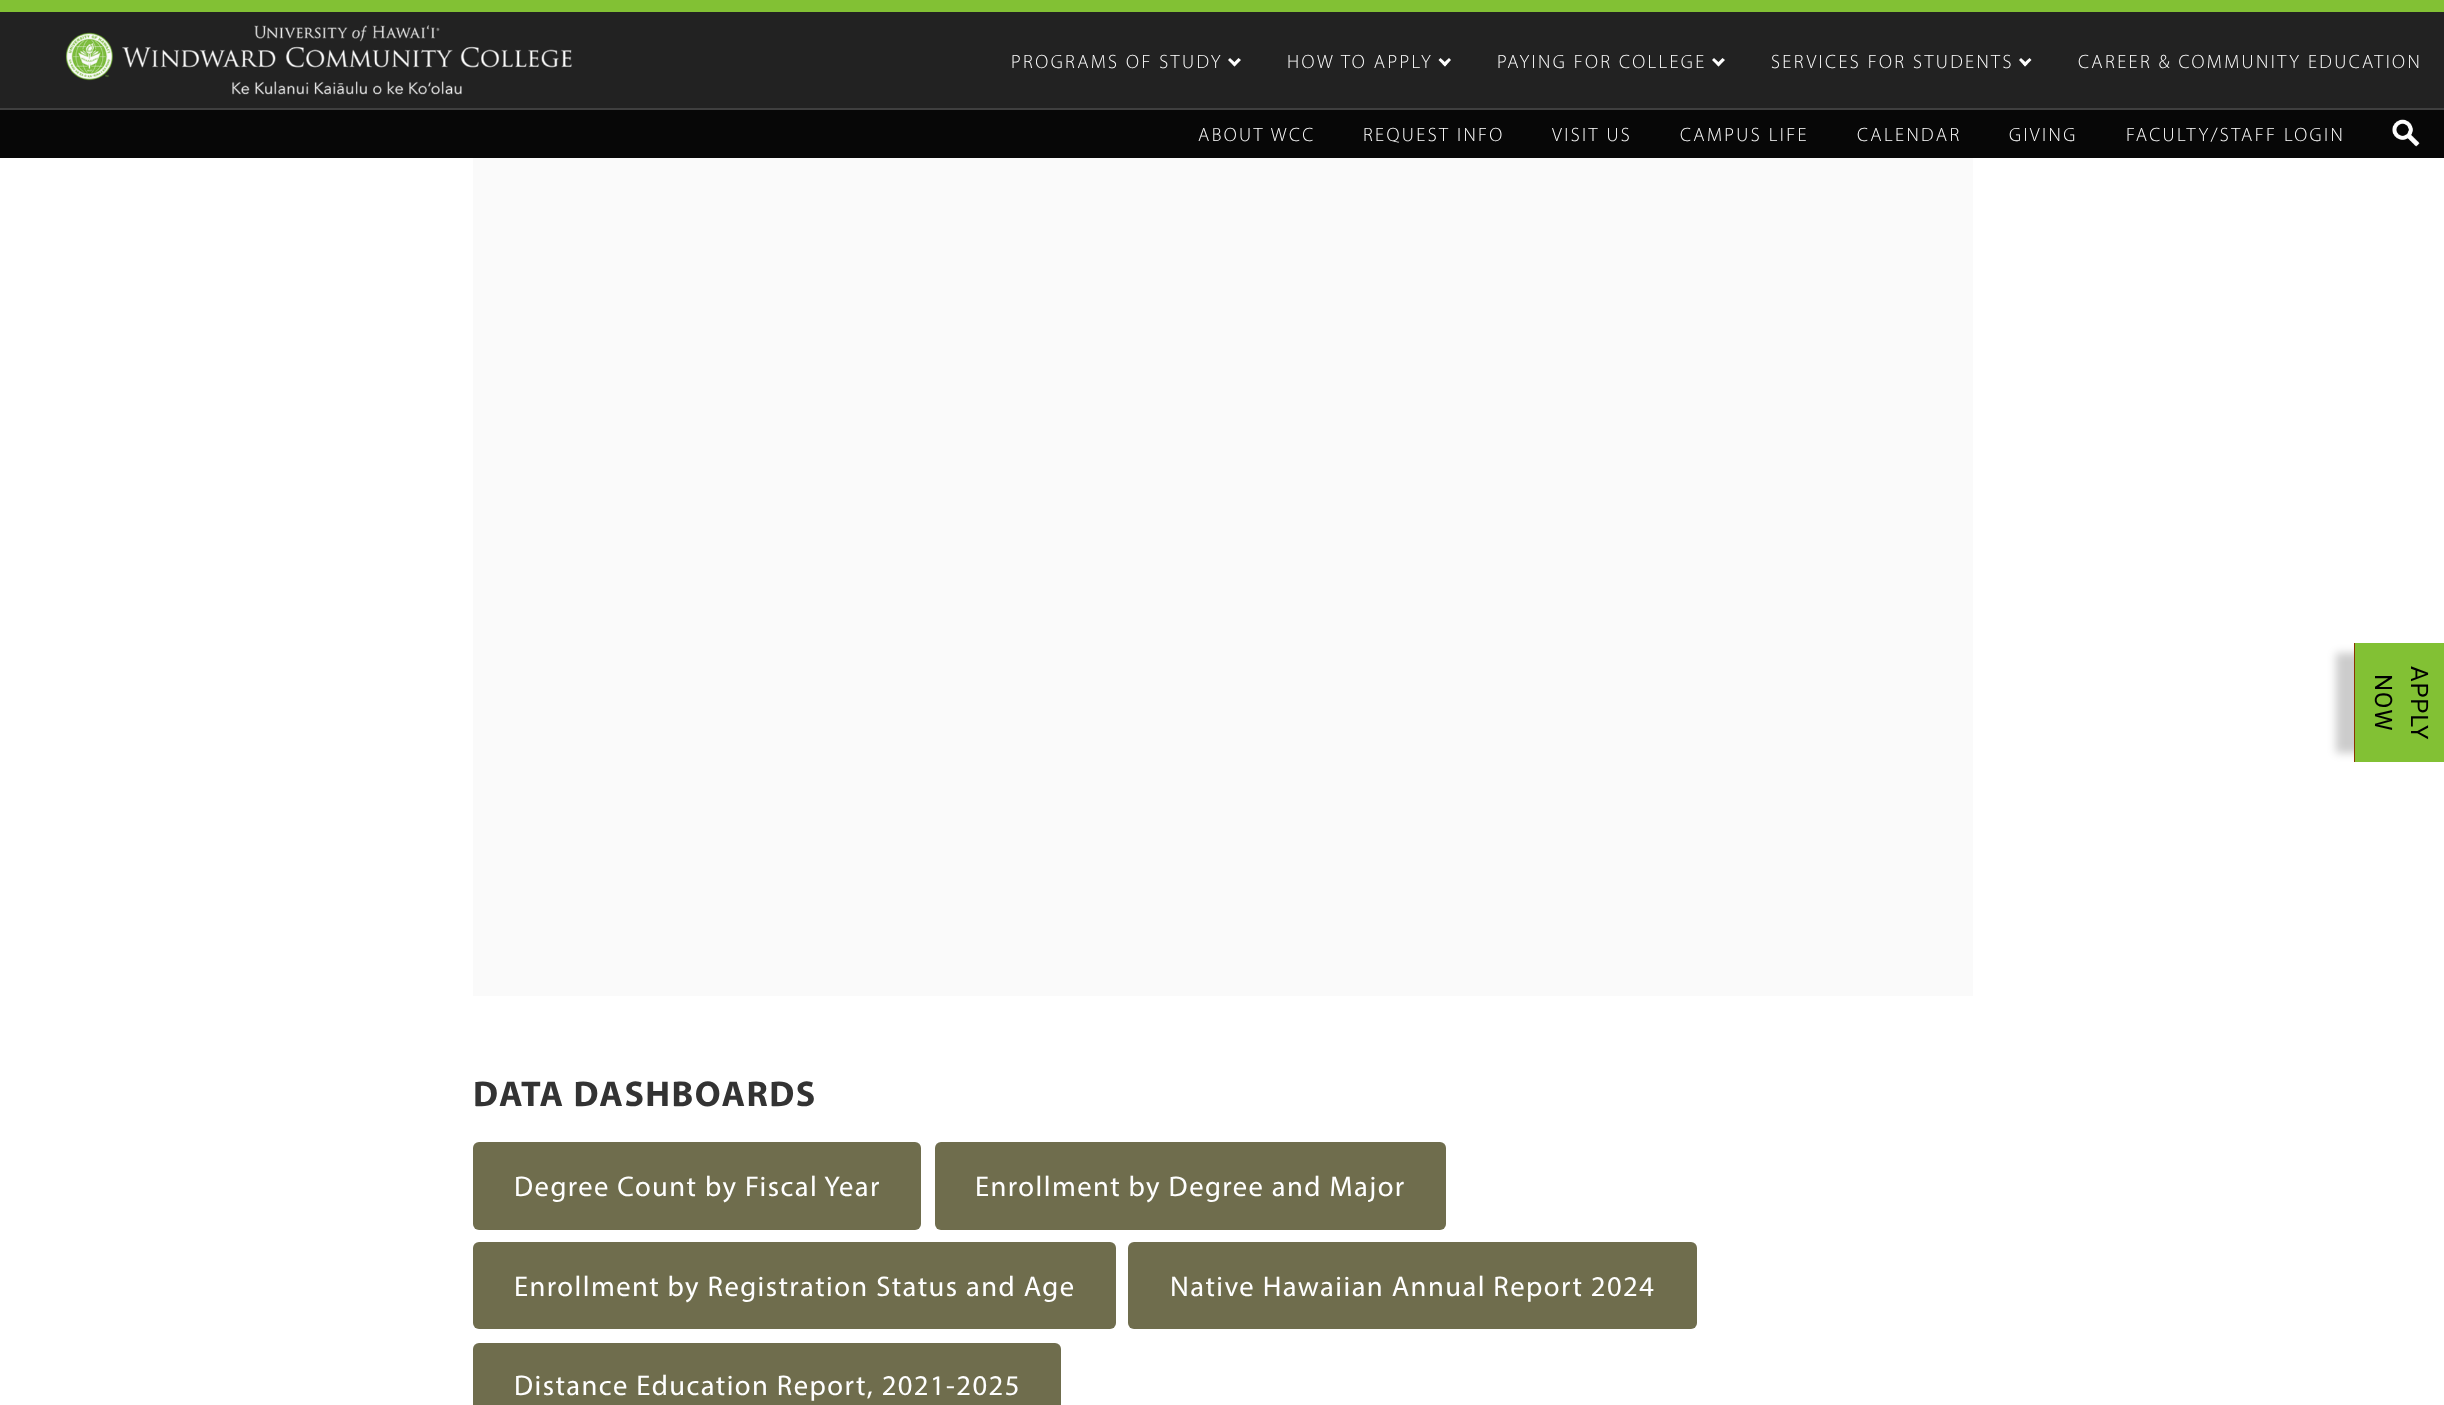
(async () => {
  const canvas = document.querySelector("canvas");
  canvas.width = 2444;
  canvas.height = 1405;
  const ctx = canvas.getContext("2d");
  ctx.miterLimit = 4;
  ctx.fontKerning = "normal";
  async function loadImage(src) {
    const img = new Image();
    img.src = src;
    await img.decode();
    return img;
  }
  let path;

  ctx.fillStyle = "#ffffff";
  ctx.fillRect(0, 0, 2444, 1405);
  ctx.fillStyle = "#222222";
  ctx.fillRect(0, 12, 2444, 96);
  ctx.fillStyle = "#82c134";
  ctx.fillRect(0, 0, 2444, 12);
  ctx.drawImage(await loadImage("img/1.png"), 65, 25, 507, 70);
  ctx.fillStyle = "#ffffff";
  path = new Path2D("M1238.5 58L1241 60L1234.5 66.5L1232.5 64Z");
  ctx.fill(path);
  path = new Path2D("M1230 58L1236.5 64L1234.5 66.5L1228 60Z");
  ctx.fill(path);
  path = new Path2D("M1449 58L1451 60L1445 66.5L1442.5 64Z");
  ctx.fill(path);
  path = new Path2D("M1440.5 58L1447 64L1445 66.5L1438.5 60Z");
  ctx.fill(path);
  path = new Path2D("M1722.5 58L1725 60L1718.5 66.5L1716.5 64Z");
  ctx.fill(path);
  path = new Path2D("M1714 58L1720.5 64L1718.5 66.5L1712 60Z");
  ctx.fill(path);
  path = new Path2D("M2029.5 58L2031.5 60L2025 66.5L2023 64Z");
  ctx.fill(path);
  path = new Path2D("M2021 58L2027.5 64L2025 66.5L2019 60Z");
  ctx.fill(path);
  ctx.fillStyle = "#070707";
  ctx.fillRect(0, 110, 2444, 48);
  ctx.fillStyle = "#3f3f3f";
  ctx.fillRect(0, 108, 2444, 2);
  ctx.drawImage(await loadImage("img/2.png"), 2392, 119, 28, 28);
  ctx.fillStyle = "rgba(0, 0, 0, 0.2)";
  ctx.filter = "blur(4.5px)";
  ctx.beginPath();
  ctx.rect(2336, 653, 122, 100);
  ctx.fill();
  ctx.filter = "none";
  ctx.fillStyle = "#82c134";
  ctx.fillRect(2355, 643, 89, 119);
  ctx.fillStyle = "#8a3500";
  ctx.fillRect(2354, 643, 1, 119);
  ctx.drawImage(await loadImage("img/3.png"), 473, 158, 1500, 838);
  ctx.fillStyle = "#6f6d4d";
  ctx.beginPath();
  ctx.roundRect(473, 1142, 448, 88, 6);
  ctx.fill();
  ctx.beginPath();
  ctx.roundRect(935, 1142, 511, 88, 6);
  ctx.fill();
  ctx.beginPath();
  ctx.roundRect(473, 1242, 643, 87, 6);
  ctx.fill();
  ctx.beginPath();
  ctx.roundRect(1128, 1242, 569, 87, 6);
  ctx.fill();
  ctx.beginPath();
  ctx.roundRect(473, 1343, 588, 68, 6);
  ctx.fill();
  ctx.letterSpacing = "2.4px";
  ctx.font = "300 19.25px Myriad";
  ctx.fillStyle = "#ffffff";
  for (const [text, x, y] of [
    ["PROGRAMS OF STUDY", 1011, 68],
    ["HOW TO APPLY", 1287, 68],
    ["PAYING FOR COLLEGE", 1497, 68],
    ["SERVICES FOR STUDENTS", 1771, 68],
    ["CAREER & COMMUNITY EDUCATION", 2078, 68],
    ["ABOUT WCC", 1198, 141],
    ["REQUEST INFO", 1363, 141],
    ["VISIT US", 1552, 141],
    ["CAMPUS LIFE", 1680, 141],
    ["CALENDAR", 1857, 141],
    ["GIVING", 2009, 141],
    ["FACULTY/STAFF LOGIN", 2126, 141],
  ]) {
    ctx.fillText(text, x, y);
  }
  ctx.letterSpacing = "0.75px";
  ctx.font = "24px Roboto";
  ctx.fillStyle = "#000000";
  ctx.save();
  ctx.translate(2375, 674);
  ctx.rotate(90 * Math.PI / 180);
  ctx.fillText("NOW", 0, 0);
  ctx.restore();
  ctx.save();
  ctx.translate(2411, 666);
  ctx.rotate(90 * Math.PI / 180);
  ctx.fillText("APPLY", 0, 0);
  ctx.restore();
  ctx.letterSpacing = "1.45px";
  ctx.font = "bold 36px Myriad";
  ctx.fillStyle = "#333333";
  ctx.fillText("DATA DASHBOARDS", 473, 1106);
  ctx.font = "28.6px Myriad";
  ctx.fillStyle = "#ffffff";
  for (const [text, x, y] of [
    ["Degree Count by Fiscal Year", 514, 1196],
    ["Enrollment by Degree and Major", 975, 1196],
    ["Enrollment by Registration Status and Age", 514, 1296],
    ["Native Hawaiian Annual Report 2024", 1170, 1296],
    ["Distance Education Report, 2021-2025", 514, 1395],
  ]) {
    ctx.fillText(text, x, y);
  }
})();
